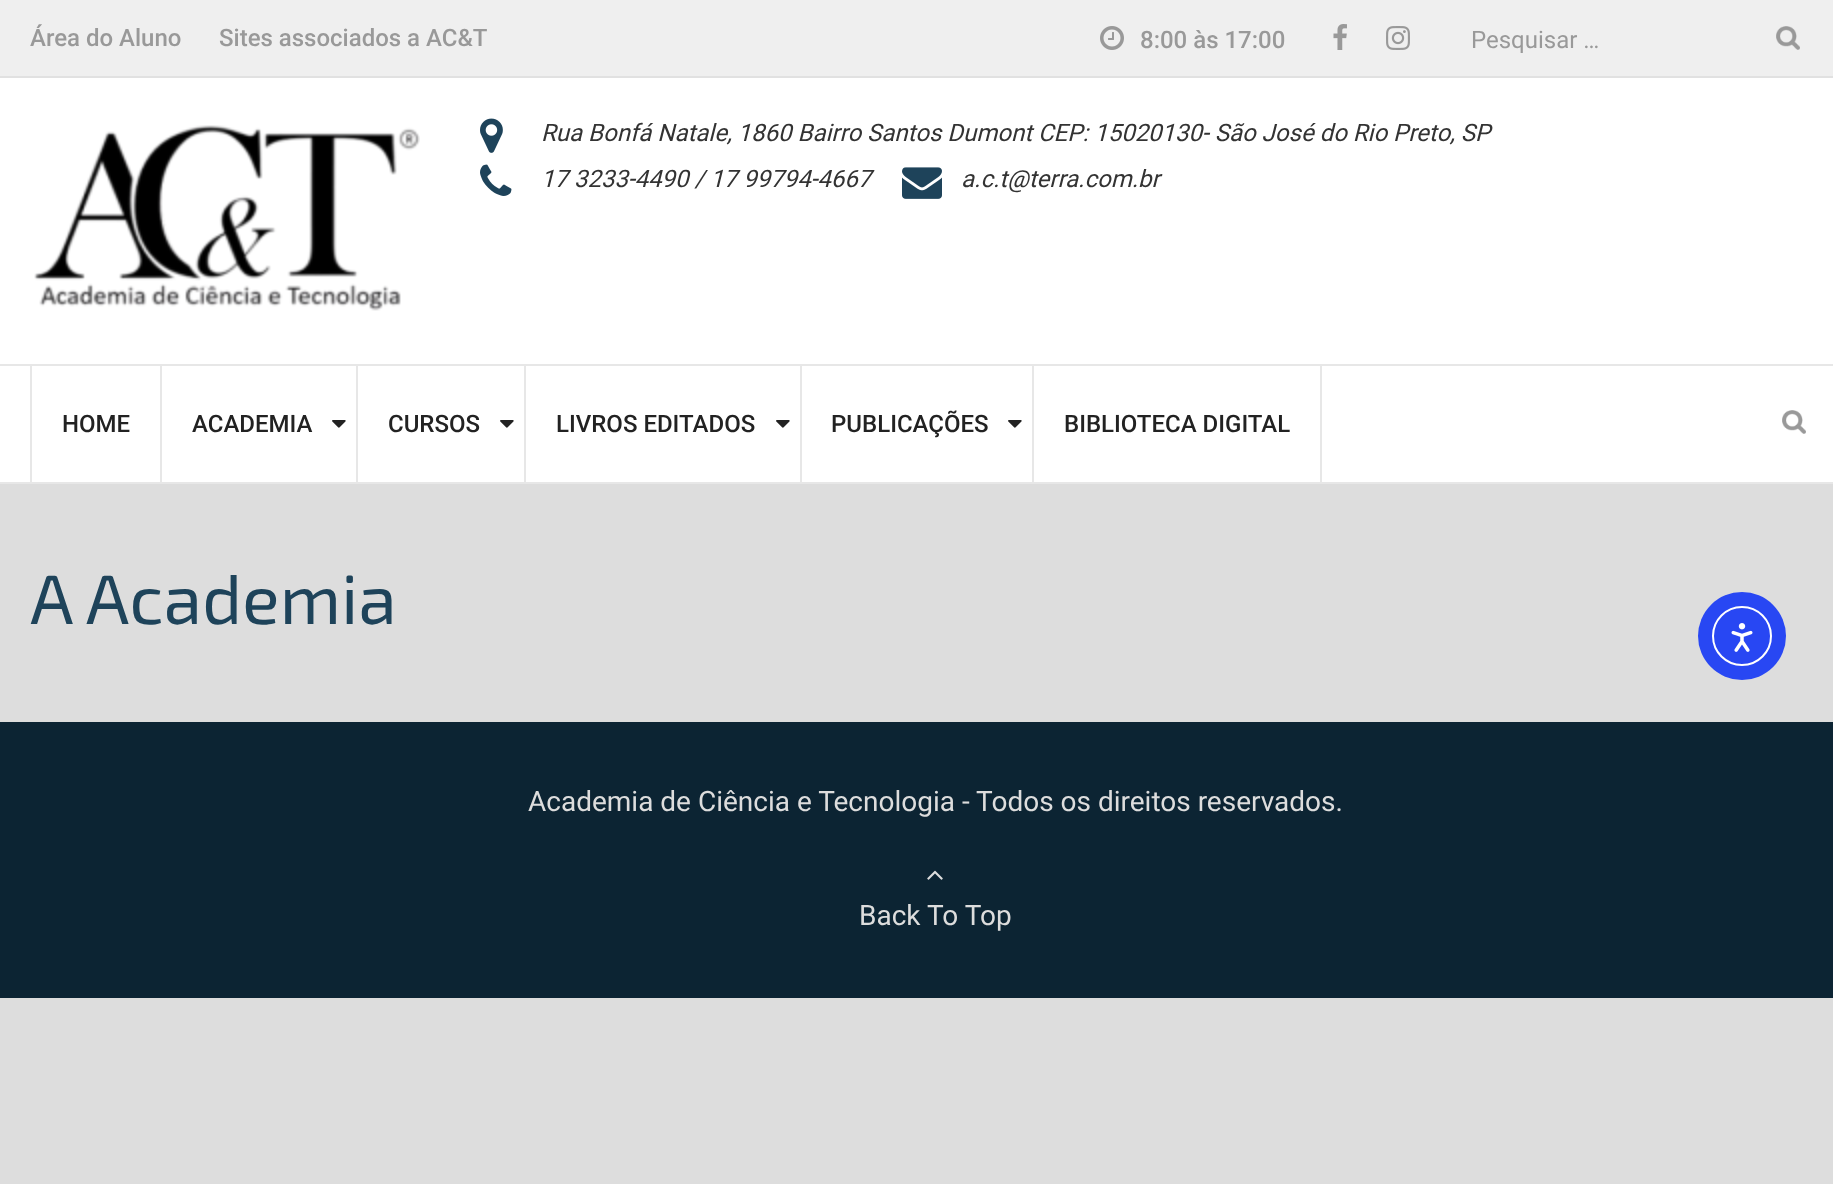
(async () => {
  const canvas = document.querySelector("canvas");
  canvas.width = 1833;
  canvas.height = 1184;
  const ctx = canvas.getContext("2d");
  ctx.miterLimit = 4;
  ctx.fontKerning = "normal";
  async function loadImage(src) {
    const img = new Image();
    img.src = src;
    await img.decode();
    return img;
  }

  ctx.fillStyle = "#dddddd";
  ctx.fillRect(0, 0, 1833, 1184);
  ctx.fillStyle = "#efefef";
  ctx.fillRect(0, 0, 1833, 76);
  ctx.fillStyle = "#e1e1e1";
  ctx.fillRect(0, 76, 1833, 2);
  ctx.drawImage(await loadImage("img/1.png"), 1100, 26, 24, 24);
  ctx.drawImage(await loadImage("img/2.png"), 1333, 24, 14, 26);
  ctx.drawImage(await loadImage("img/3.png"), 1386, 26, 24, 24);
  ctx.drawImage(await loadImage("img/4.png"), 1776, 26, 24, 24);
  ctx.fillStyle = "#ffffff";
  ctx.fillRect(0, 78, 1833, 286);
  ctx.drawImage(await loadImage("img/5.png"), 34, 125, 386, 186);
  ctx.drawImage(await loadImage("img/6.png"), 480, 118, 23, 35);
  ctx.drawImage(await loadImage("img/7.png"), 480, 164, 32, 32);
  ctx.drawImage(await loadImage("img/8.png"), 902, 167, 40, 32);
  for (const [x, y, w, h, color] of [
    [0, 366, 1833, 116, "#ffffff"],
    [0, 364, 1833, 2, "#e7e7e7"],
    [0, 482, 1833, 2, "#e7e7e7"],
    [30, 366, 2, 116, "#e7e7e7"],
    [160, 366, 2, 116, "#e7e7e7"],
  ]) {
    ctx.fillStyle = color;
    ctx.fillRect(x, y, w, h);
  }
  ctx.drawImage(await loadImage("img/9.png"), 332, 420, 14, 8);
  ctx.fillRect(356, 366, 2, 116);
  ctx.drawImage(await loadImage("img/9.png"), 500, 420, 14, 8);
  ctx.fillRect(524, 366, 2, 116);
  ctx.drawImage(await loadImage("img/9.png"), 776, 420, 14, 8);
  ctx.fillRect(800, 366, 2, 116);
  ctx.drawImage(await loadImage("img/9.png"), 1008, 420, 14, 8);
  ctx.fillRect(1320, 366, 2, 116);
  ctx.fillRect(1032, 366, 2, 116);
  ctx.drawImage(await loadImage("img/10.png"), 1782, 410, 24, 24);
  ctx.fillStyle = "#0c2433";
  ctx.fillRect(0, 722, 1833, 276);
  ctx.drawImage(await loadImage("img/11.png"), 927, 870, 16, 10);
  ctx.fillStyle = "#2847f3";
  ctx.beginPath();
  ctx.arc(1742, 636, 44, 0, Math.PI * 2);
  ctx.fill();
  ctx.beginPath();
  ctx.arc(1742, 636, 29, 0, Math.PI * 2);
  ctx.strokeStyle = "#ffffff";
  ctx.lineWidth = 2;
  ctx.stroke();
  ctx.drawImage(await loadImage("img/12.png"), 1731, 623, 22, 29);
  ctx.font = "500 24px Roboto";
  ctx.fillStyle = "#999999";
  for (const [text, x, y] of [
    ["Área do Aluno", 30, 46],
    ["Sites associados a AC&T", 219, 46],
    ["8:00 às 17:00", 1140, 48],
  ]) {
    ctx.fillText(text, x, y);
  }
  ctx.font = "24px Roboto";
  ctx.fillText("Pesquisar …", 1471, 48);
  ctx.font = "italic 24px Roboto";
  ctx.fillStyle = "#333333";
  for (const [text, x, y] of [
    ["Rua Bonfá Natale, 1860 Bairro Santos Dumont CEP: 15020130- São José do Rio Preto, SP", 541, 141],
    ["17 3233-4490 / 17 99794-4667", 541, 187],
    ["a.c.t@terra.com.br", 961, 187],
  ]) {
    ctx.fillText(text, x, y);
  }
  ctx.font = "500 24px Roboto";
  ctx.fillStyle = "#222222";
  for (const [text, x, y] of [
    ["HOME", 62, 432],
    ["ACADEMIA", 192, 432],
    ["CURSOS", 388, 432],
    ["LIVROS EDITADOS", 556, 432],
    ["PUBLICAÇÕES", 831, 432],
    ["BIBLIOTECA DIGITAL", 1064, 432],
  ]) {
    ctx.fillText(text, x, y);
  }
  ctx.font = "70px 'Exo 2'";
  ctx.fillStyle = "#1e435a";
  ctx.fillText("A Academia", 30, 624);
  ctx.font = "28px Roboto";
  ctx.fillStyle = "#dddddd";
  ctx.fillText("Academia de Ciência e Tecnologia - Todos os direitos reservados.", 528, 811);
  ctx.fillText("Back To Top", 859, 925);
})();
